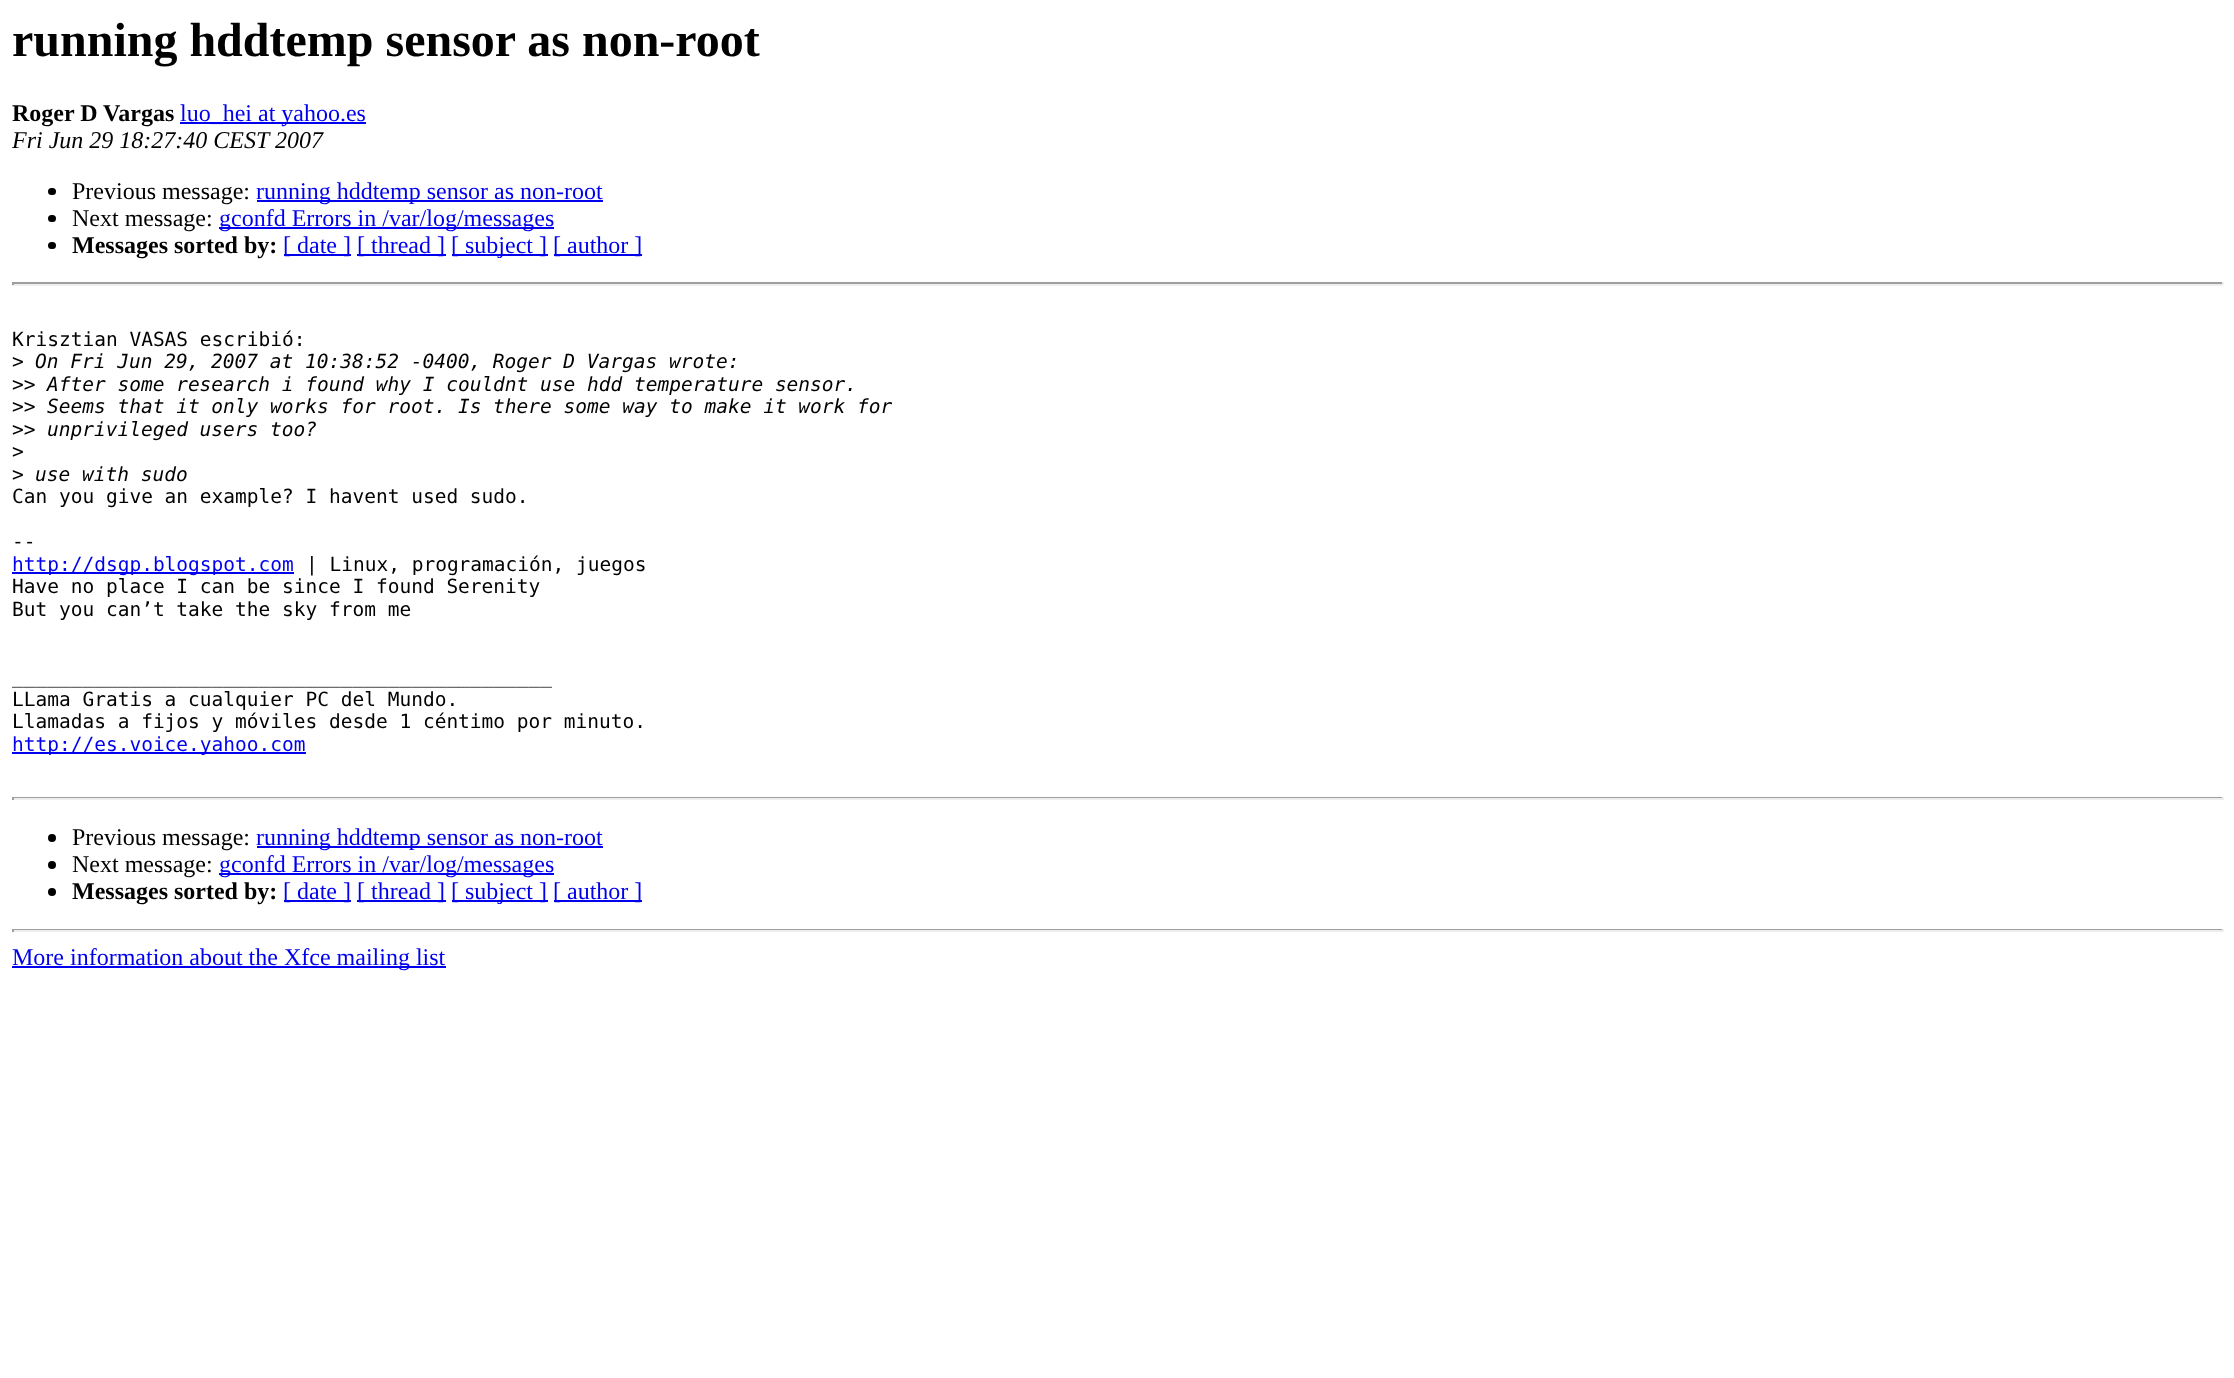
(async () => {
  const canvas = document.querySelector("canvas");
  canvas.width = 2234;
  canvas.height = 1378;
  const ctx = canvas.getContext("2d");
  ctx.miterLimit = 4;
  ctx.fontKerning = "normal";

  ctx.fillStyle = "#ffffff";
  ctx.fillRect(0, 0, 2234, 1378);
  ctx.fillStyle = "#0000ee";
  ctx.fillRect(180, 122, 186, 2);
  ctx.fillStyle = "#000000";
  ctx.beginPath();
  ctx.roundRect(48, 188, 8, 7, 3.5);
  ctx.fill();
  ctx.fillStyle = "#0000ee";
  ctx.fillRect(257, 200, 346, 2);
  ctx.fillStyle = "#000000";
  ctx.beginPath();
  ctx.roundRect(48, 215, 8, 7, 3.5);
  ctx.fill();
  ctx.fillStyle = "#0000ee";
  ctx.fillRect(219, 227, 335, 2);
  ctx.fillStyle = "#000000";
  ctx.beginPath();
  ctx.roundRect(48, 242, 8, 7, 3.5);
  ctx.fill();
  for (const [x, y, w, h, color] of [
    [284, 254, 67, 2, "#0000ee"],
    [357, 254, 89, 2, "#0000ee"],
    [452, 254, 96, 2, "#0000ee"],
    [554, 254, 88, 2, "#0000ee"],
    [12, 282, 2211, 2, "#9f9f9f"],
    [2222, 282, 2, 3, "#eeeeee"],
    [12, 284, 2211, 2, "#eeeeee"],
    [12, 282, 2, 3, "#9f9f9f"],
    [12, 572, 282, 2, "#0000ee"],
    [12, 752, 294, 2, "#0000ee"],
    [12, 797, 2211, 1, "#9f9f9f"],
    [2222, 797, 2, 3, "#eeeeee"],
    [12, 798, 2211, 2, "#eeeeee"],
    [12, 797, 2, 3, "#9f9f9f"],
  ]) {
    ctx.fillStyle = color;
    ctx.fillRect(x, y, w, h);
  }
  ctx.fillStyle = "#000000";
  ctx.beginPath();
  ctx.arc(52, 838, 4, 0, Math.PI * 2);
  ctx.fill();
  ctx.fillStyle = "#0000ee";
  ctx.fillRect(257, 846, 346, 2);
  ctx.fillStyle = "#000000";
  ctx.beginPath();
  ctx.arc(52, 865, 4, 0, Math.PI * 2);
  ctx.fill();
  ctx.fillStyle = "#0000ee";
  ctx.fillRect(219, 873, 335, 2);
  ctx.fillStyle = "#000000";
  ctx.beginPath();
  ctx.arc(52, 892, 4, 0, Math.PI * 2);
  ctx.fill();
  for (const [x, y, w, h, color] of [
    [284, 900, 67, 2, "#0000ee"],
    [357, 900, 89, 2, "#0000ee"],
    [452, 900, 96, 2, "#0000ee"],
    [554, 900, 88, 2, "#0000ee"],
    [12, 929, 2211, 1, "#9f9f9f"],
    [2222, 929, 2, 3, "#eeeeee"],
    [12, 930, 2211, 2, "#eeeeee"],
    [12, 929, 2, 3, "#9f9f9f"],
    [12, 966, 434, 2, "#0000ee"],
  ]) {
    ctx.fillStyle = color;
    ctx.fillRect(x, y, w, h);
  }
  ctx.font = "bold 48px Liberation Serif";
  ctx.fillStyle = "#000000";
  ctx.fillText("running hddtemp sensor as non-root", 12, 56);
  ctx.font = "bold 24px Liberation Serif";
  ctx.fillText("Roger D Vargas", 12, 121);
  ctx.font = "24px Liberation Serif";
  ctx.fillStyle = "#0000ee";
  ctx.fillText("luo_hei at yahoo.es", 180, 121);
  ctx.font = "italic 24px Liberation Serif";
  ctx.fillStyle = "#000000";
  ctx.fillText("Fri Jun 29 18:27:40 CEST 2007", 12, 148);
  ctx.font = "24px Liberation Serif";
  ctx.fillText("Previous message:", 72, 199);
  ctx.fillStyle = "#0000ee";
  ctx.fillText("running hddtemp sensor as non-root", 256, 199);
  ctx.fillStyle = "#000000";
  ctx.fillText("Next message:", 72, 226);
  ctx.fillStyle = "#0000ee";
  ctx.fillText("gconfd Errors in /var/log/messages", 219, 226);
  ctx.font = "bold 24px Liberation Serif";
  ctx.fillStyle = "#000000";
  ctx.fillText("Messages sorted by:", 72, 253);
  ctx.font = "24px Liberation Serif";
  ctx.fillStyle = "#0000ee";
  for (const [text, x, y] of [
    ["[ date ]", 283, 253],
    ["[ thread ]", 357, 253],
    ["[ subject ]", 451, 253],
    ["[ author ]", 553, 253],
  ]) {
    ctx.fillText(text, x, y);
  }
  ctx.font = "19.5px DejaVu Sans Mono";
  ctx.fillStyle = "#000000";
  ctx.fillText("Krisztian VASAS escribió:", 12, 346);
  ctx.fillText(">", 12, 368);
  ctx.font = "italic 19.5px DejaVu Sans Mono";
  ctx.fillText("On Fri Jun 29, 2007 at 10:38:52 -0400, Roger D Vargas wrote:", 35, 368);
  ctx.font = "19.5px DejaVu Sans Mono";
  ctx.fillText(">>", 12, 391);
  ctx.font = "italic 19.5px DejaVu Sans Mono";
  ctx.fillText("After some research i found why I couldnt use hdd temperature sensor.", 47, 391);
  ctx.font = "19.5px DejaVu Sans Mono";
  ctx.fillText(">>", 12, 413);
  ctx.font = "italic 19.5px DejaVu Sans Mono";
  ctx.fillText("Seems that it only works for root. Is there some way to make it work for", 47, 413);
  ctx.font = "19.5px DejaVu Sans Mono";
  ctx.fillText(">>", 12, 436);
  ctx.font = "italic 19.5px DejaVu Sans Mono";
  ctx.fillText("unprivileged users too?", 47, 436);
  ctx.font = "19.5px DejaVu Sans Mono";
  ctx.fillText(">", 12, 458);
  ctx.fillText(">", 12, 481);
  ctx.font = "italic 19.5px DejaVu Sans Mono";
  ctx.fillText("use with sudo", 35, 481);
  ctx.font = "19.5px DejaVu Sans Mono";
  ctx.fillText("Can you give an example? I havent used sudo.", 12, 503);
  ctx.fillText("--", 12, 548);
  ctx.fillStyle = "#0000ee";
  ctx.fillText("http://dsgp.blogspot.com", 12, 571);
  ctx.fillStyle = "#000000";
  for (const [text, x, y] of [
    ["| Linux, programación, juegos", 306, 571],
    ["Have no place I can be since I found Serenity", 12, 593],
    ["But you can’t take the sky from me", 12, 616],
    ["______________________________________________", 12, 683],
    ["LLama Gratis a cualquier PC del Mundo.", 12, 706],
    ["Llamadas a fijos y móviles desde 1 céntimo por minuto.", 12, 728],
  ]) {
    ctx.fillText(text, x, y);
  }
  ctx.fillStyle = "#0000ee";
  ctx.fillText("http://es.voice.yahoo.com", 12, 751);
  ctx.font = "24px Liberation Serif";
  ctx.fillStyle = "#000000";
  ctx.fillText("Previous message:", 72, 845);
  ctx.fillStyle = "#0000ee";
  ctx.fillText("running hddtemp sensor as non-root", 256, 845);
  ctx.fillStyle = "#000000";
  ctx.fillText("Next message:", 72, 872);
  ctx.fillStyle = "#0000ee";
  ctx.fillText("gconfd Errors in /var/log/messages", 219, 872);
  ctx.font = "bold 24px Liberation Serif";
  ctx.fillStyle = "#000000";
  ctx.fillText("Messages sorted by:", 72, 899);
  ctx.font = "24px Liberation Serif";
  ctx.fillStyle = "#0000ee";
  for (const [text, x, y] of [
    ["[ date ]", 283, 899],
    ["[ thread ]", 357, 899],
    ["[ subject ]", 451, 899],
    ["[ author ]", 553, 899],
    ["More information about the Xfce mailing list", 12, 965],
  ]) {
    ctx.fillText(text, x, y);
  }
})();
